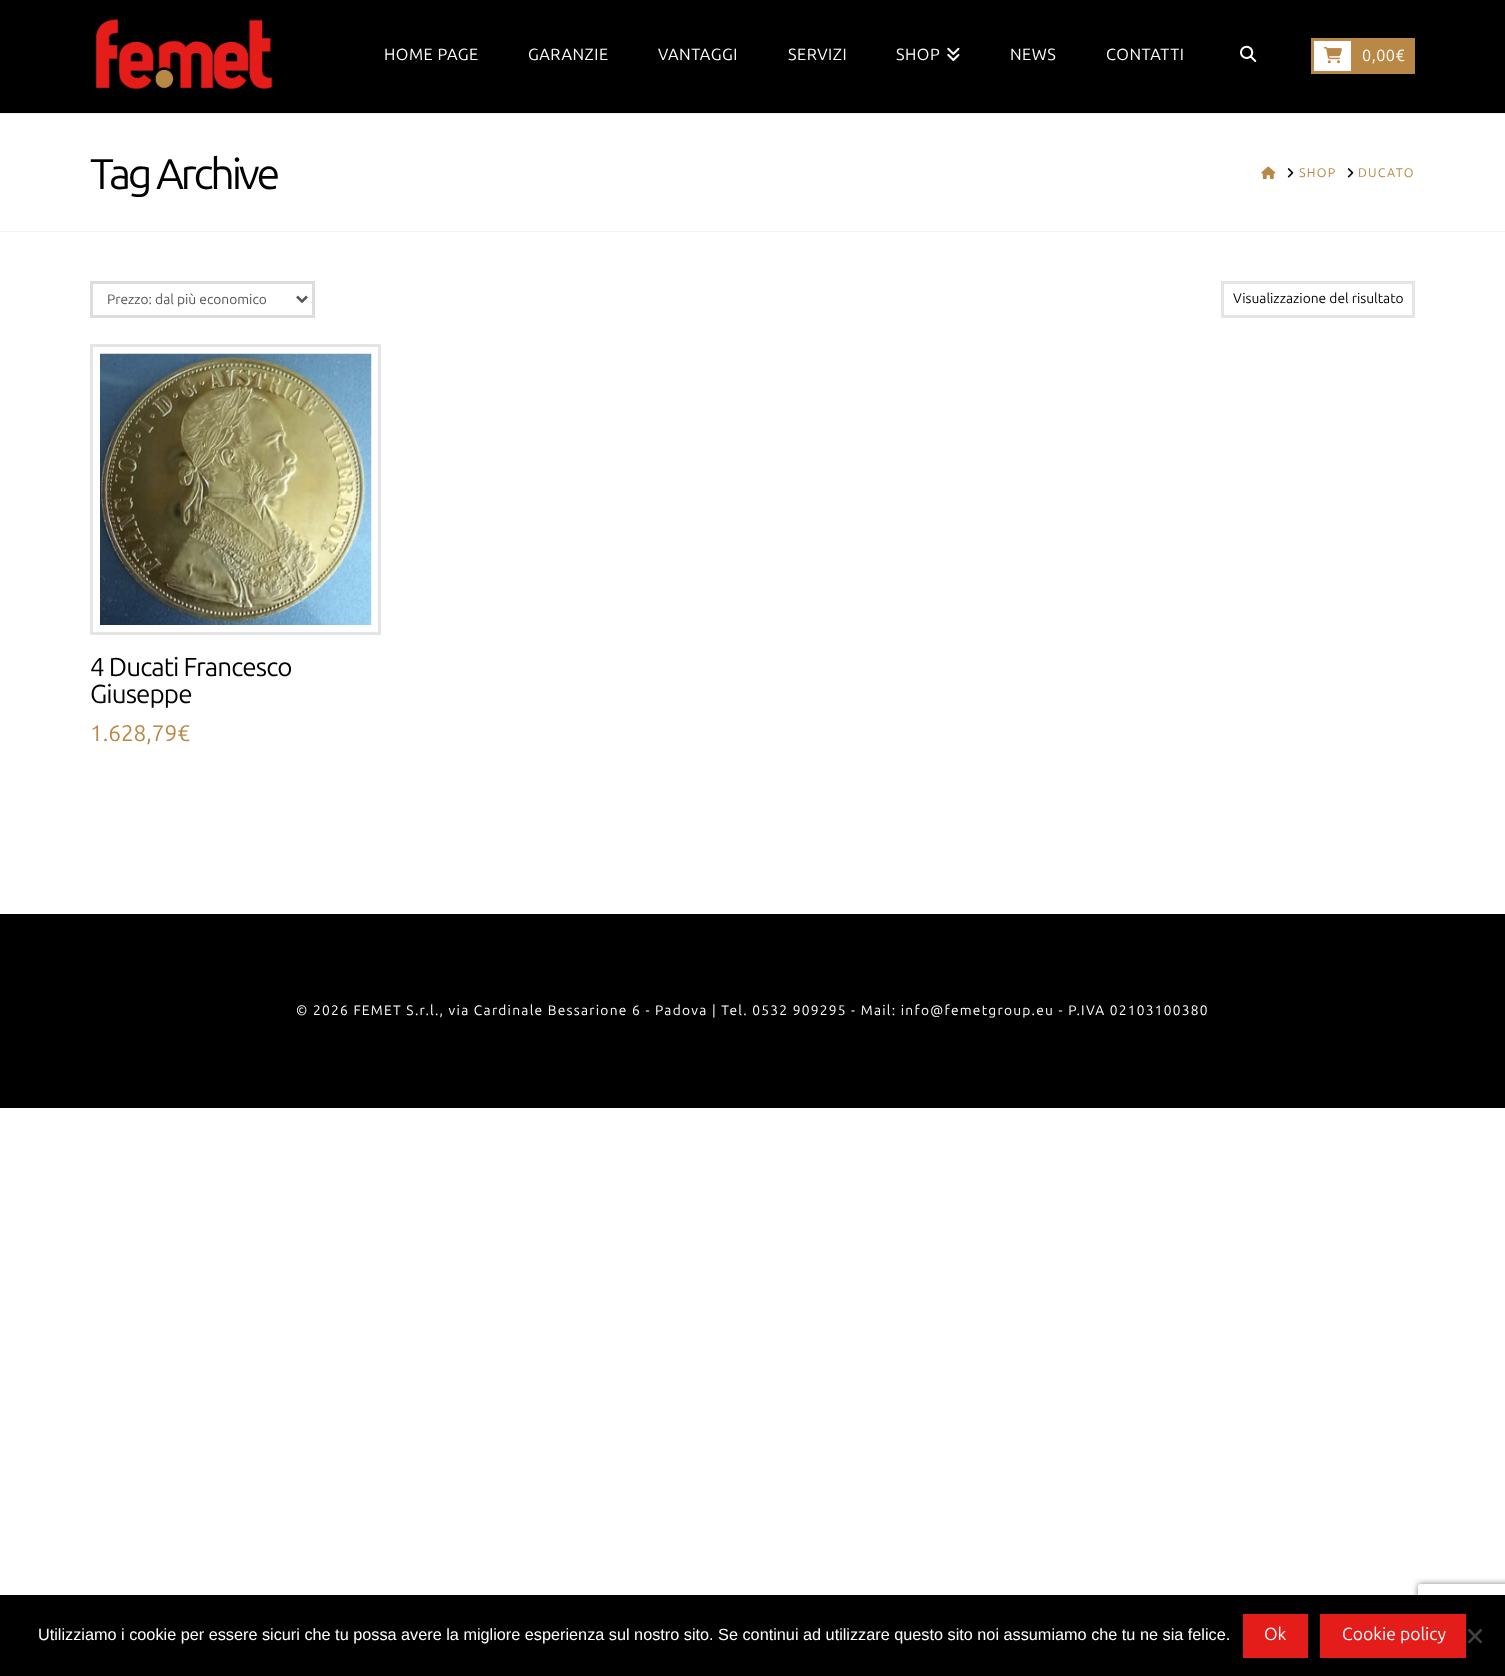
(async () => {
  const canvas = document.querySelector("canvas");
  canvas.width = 1505;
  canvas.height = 1676;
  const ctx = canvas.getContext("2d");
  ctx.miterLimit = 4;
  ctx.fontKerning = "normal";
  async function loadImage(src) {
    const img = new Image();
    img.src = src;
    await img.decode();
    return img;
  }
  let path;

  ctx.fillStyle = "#ffffff";
  ctx.fillRect(0, 0, 1505, 1676);
  ctx.fillStyle = "#000000";
  ctx.fillRect(0, 0, 1505, 113);
  ctx.drawImage(await loadImage("img/1.png"), 96, 19, 176, 71);
  ctx.drawImage(await loadImage("img/2.png"), 947, 47, 13, 14);
  ctx.drawImage(await loadImage("img/3.png"), 1240, 45, 17, 17);
  for (const [x, y, w, h, color] of [
    [1314, 41, 37, 30, "#ffffff"],
    [1311, 38, 104, 3, "#b98846"],
    [1311, 71, 104, 3, "#b98846"],
    [1311, 38, 3, 36, "#b98846"],
  ]) {
    ctx.fillStyle = color;
    ctx.fillRect(x, y, w, h);
  }
  ctx.drawImage(await loadImage("img/4.png"), 1323, 47, 19, 17);
  for (const [x, y, w, h, color] of [
    [1351, 41, 64, 30, "#b98846"],
    [0, 113, 1505, 1, "#f2f2f2"],
    [0, 231, 1505, 1, "#f2f2f2"],
  ]) {
    ctx.fillStyle = color;
    ctx.fillRect(x, y, w, h);
  }
  ctx.drawImage(await loadImage("img/5.png"), 1261, 166, 15, 14);
  ctx.drawImage(await loadImage("img/6.png"), 1287, 168, 7, 10);
  ctx.drawImage(await loadImage("img/6.png"), 1347, 168, 7, 10);
  ctx.strokeStyle = "#dddddd";
  ctx.lineWidth = 3;
  ctx.strokeRect(91.5, 282.5, 222, 34);
  path = new Path2D("M297 296.5L302 301.5L307 296.5");
  ctx.strokeStyle = "#555555";
  ctx.lineWidth = 2.5;
  ctx.stroke(path);
  ctx.strokeStyle = "#e5e5e5";
  ctx.lineWidth = 3;
  ctx.strokeRect(1222.5, 282.5, 191, 34);
  ctx.strokeRect(91.5, 345.5, 288, 288);
  ctx.drawImage(await loadImage("img/7.png"), 100, 353, 272, 272);
  ctx.fillStyle = "#000000";
  ctx.fillRect(0, 914, 1505, 194);
  ctx.save();
  path = new Path2D("M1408 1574H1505V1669H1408ZM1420.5 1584H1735.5C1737 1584 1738 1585 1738 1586.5V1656.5C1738 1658 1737 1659 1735.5 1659H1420.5C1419 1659 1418 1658 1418 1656.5V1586.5C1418 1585 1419 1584 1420.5 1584Z");
  ctx.clip(path, "evenodd");
  ctx.fillStyle = "#808080";
  ctx.filter = "blur(3px)";
  ctx.beginPath();
  ctx.roundRect(1418, 1584, 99, 75, 2.5);
  ctx.fill();
  ctx.filter = "none";
  ctx.restore();
  for (const [x, y, w, h, color] of [
    [0, 1595, 1505, 81, "#000000"],
    [1243, 1614, 65, 44, "#e41d1a"],
    [1320, 1614, 146, 44, "#e41d1a"],
  ]) {
    ctx.fillStyle = color;
    ctx.fillRect(x, y, w, h);
  }
  ctx.fillStyle = "#404040";
  path = new Path2D("M1480.5 1628.5L1482.5 1630.5L1469.5 1643.5L1467.5 1642Z");
  ctx.fill(path);
  path = new Path2D("M1467.5 1630.5L1469.5 1628.5L1482.5 1642L1480.5 1643.5Z");
  ctx.fill(path);
  ctx.letterSpacing = "0.5px";
  ctx.font = "16.25px Ubuntu";
  ctx.fillStyle = "#ffffff";
  for (const [text, x, y] of [
    ["HOME PAGE", 384, 60],
    ["GARANZIE", 528, 60],
    ["VANTAGGI", 658, 60],
    ["SERVIZI", 788, 60],
    ["SHOP", 896, 60],
    ["NEWS", 1010, 60],
    ["CONTATTI", 1106, 60],
    ["0,00€", 1362, 61],
  ]) {
    ctx.fillText(text, x, y);
  }
  ctx.letterSpacing = "-3.25px";
  ctx.font = "43px Ubuntu";
  ctx.fillStyle = "#000000";
  ctx.fillText("Tag Archive", 90, 189);
  ctx.letterSpacing = "1.25px";
  ctx.font = "12.5px Ubuntu";
  ctx.fillStyle = "#b98846";
  ctx.fillText("SHOP", 1299, 177);
  ctx.fillText("DUCATO", 1358, 177);
  ctx.letterSpacing = "0px";
  ctx.font = "13.75px Ubuntu";
  ctx.fillStyle = "#555555";
  ctx.fillText("Prezzo: dal più economico", 107, 304);
  ctx.fillStyle = "#000000";
  ctx.fillText("Visualizzazione del risultato", 1233, 303);
  ctx.letterSpacing = "-0.9px";
  ctx.font = "26px Ubuntu";
  ctx.fillText("4 Ducati Francesco", 90, 676);
  ctx.fillText("Giuseppe", 90, 703);
  ctx.letterSpacing = "0px";
  ctx.font = "22.5px Ubuntu";
  ctx.fillStyle = "#b98846";
  ctx.fillText("1.628,79€", 90, 741);
  ctx.letterSpacing = "1.25px";
  ctx.font = "13.75px Ubuntu";
  ctx.fillStyle = "#ffffff";
  ctx.fillText("© 2026 FEMET S.r.l., via Cardinale Bessarione 6 - Padova | Tel. 0532 909295 - Mail: info@femetgroup.eu - P.IVA 02103100380", 296, 1015);
  ctx.letterSpacing = "0px";
  ctx.font = "16.25px Liberation Sans";
  ctx.fillText("Utilizziamo i cookie per essere sicuri che tu possa avere la migliore esperienza sul nostro sito. Se continui ad utilizzare questo sito noi assumiamo che tu ne sia felice.", 38, 1640);
  ctx.font = "17.5px Ubuntu";
  ctx.fillText("Ok", 1264, 1640);
  ctx.fillText("Cookie policy", 1342, 1640);
})();
